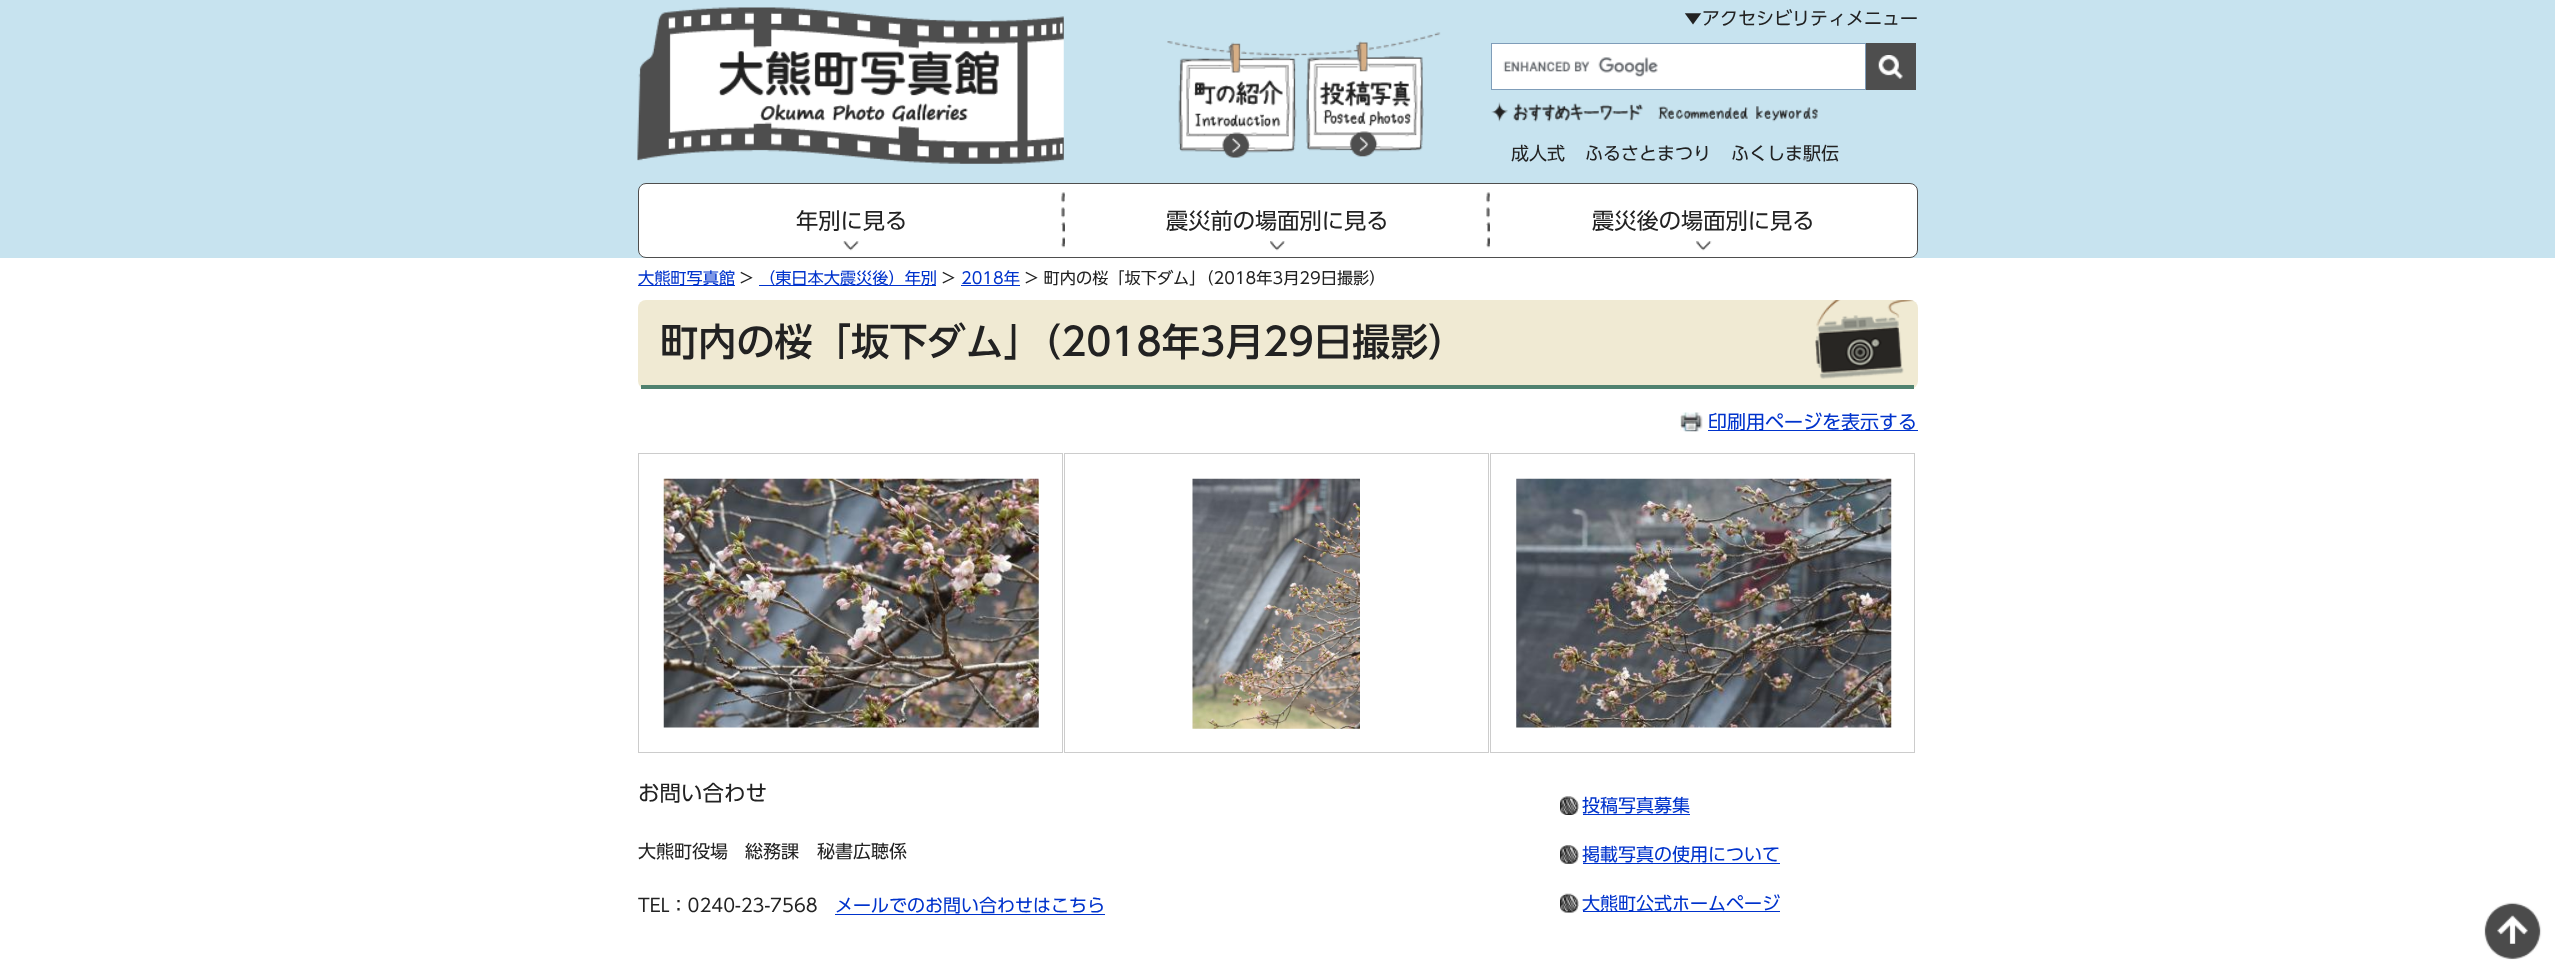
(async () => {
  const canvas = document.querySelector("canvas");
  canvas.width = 2555;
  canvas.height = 973;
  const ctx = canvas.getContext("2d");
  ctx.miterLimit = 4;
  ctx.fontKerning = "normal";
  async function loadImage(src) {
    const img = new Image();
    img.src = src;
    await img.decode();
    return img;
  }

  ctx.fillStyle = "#ffffff";
  ctx.fillRect(0, 0, 2555, 973);
  ctx.fillStyle = "#c7e3ef";
  ctx.fillRect(0, 0, 2555, 258);
  ctx.drawImage(await loadImage("img/1.png"), 637, 7, 427, 157);
  ctx.drawImage(await loadImage("img/2.png"), 1167, 41, 133, 117);
  ctx.drawImage(await loadImage("img/3.png"), 1301, 32, 140, 125);
  ctx.fillStyle = "#ffffff";
  ctx.fillRect(1492, 44, 373, 45);
  ctx.drawImage(await loadImage("img/4.png"), 1503, 57, 155, 20);
  ctx.strokeStyle = "#7f9db9";
  ctx.strokeRect(1491.5, 43.5, 374, 46);
  ctx.fillStyle = "#4e4e4e";
  ctx.fillRect(1866, 43, 50, 47);
  ctx.drawImage(await loadImage("img/5.png"), 1878, 55, 25, 24);
  ctx.drawImage(await loadImage("img/6.png"), 1491, 102, 327, 20);
  ctx.fillStyle = "#ffffff";
  ctx.beginPath();
  ctx.roundRect(638.5, 183.5, 1279, 74, 7.5);
  ctx.fill();
  ctx.strokeStyle = "#4e4e4e";
  ctx.stroke();
  ctx.drawImage(await loadImage("img/7.png"), 1061, 192, 4, 56);
  ctx.drawImage(await loadImage("img/8.png"), 843, 241, 16, 10);
  ctx.drawImage(await loadImage("img/7.png"), 1486, 192, 4, 56);
  ctx.drawImage(await loadImage("img/9.png"), 1270, 241, 15, 10);
  ctx.drawImage(await loadImage("img/10.png"), 1696, 241, 16, 10);
  for (const [x, y, w, h, color] of [
    [638, 285, 97, 1, "#0033cc"],
    [759, 285, 177, 1, "#0033cc"],
    [961, 285, 59, 1, "#0033cc"],
  ]) {
    ctx.fillStyle = color;
    ctx.fillRect(x, y, w, h);
  }
  ctx.fillStyle = "#f0ead3";
  ctx.beginPath();
  ctx.roundRect(638, 300, 1280, 89, 8);
  ctx.fill();
  ctx.drawImage(await loadImage("img/11.png"), 1815, 300, 99, 79);
  ctx.fillStyle = "#50826f";
  ctx.fillRect(641, 385, 1273, 4);
  ctx.drawImage(await loadImage("img/12.png"), 1680, 412, 23, 20);
  ctx.fillStyle = "#0033cc";
  ctx.fillRect(1708, 430, 210, 1);
  ctx.strokeStyle = "#cccccc";
  ctx.strokeRect(638.5, 453.5, 424, 299);
  ctx.drawImage(await loadImage("img/13.png"), 663, 478, 376, 250);
  ctx.strokeRect(1064.5, 453.5, 424, 299);
  ctx.drawImage(await loadImage("img/14.png"), 1192, 478, 168, 251);
  ctx.strokeRect(1490.5, 453.5, 424, 299);
  ctx.drawImage(await loadImage("img/15.png"), 1516, 478, 376, 250);
  ctx.fillRect(835, 914, 270, 1);
  ctx.drawImage(await loadImage("img/16.png"), 1560, 796, 19, 19);
  ctx.fillRect(1583, 814, 107, 1);
  ctx.drawImage(await loadImage("img/17.png"), 1560, 845, 19, 19);
  ctx.fillRect(1583, 863, 197, 1);
  ctx.drawImage(await loadImage("img/18.png"), 1560, 893, 19, 20);
  ctx.fillRect(1583, 911, 197, 1);
  ctx.drawImage(await loadImage("img/19.png"), 2484, 902, 58, 58);
  ctx.font = "18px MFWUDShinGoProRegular";
  ctx.fillStyle = "#222222";
  for (const [text, x, y] of [
    ["▼アクセシビリティメニュー", 1684, 25],
    ["成人式", 1511, 160],
    ["ふるさとまつり", 1585, 160],
    ["ふくしま駅伝", 1731, 160],
  ]) {
    ctx.fillText(text, x, y);
  }
  ctx.font = "22.25px MFWUDShinGoProRegular";
  for (const [text, x, y] of [
    ["年別に見る", 796, 229],
    ["震災前の場面別に見る", 1166, 229],
    ["震災後の場面別に見る", 1592, 229],
  ]) {
    ctx.fillText(text, x, y);
  }
  ctx.font = "16.2px MFWUDShinGoProRegular";
  ctx.fillStyle = "#0033cc";
  ctx.fillText("大熊町写真館", 638, 284);
  ctx.fillStyle = "#222222";
  ctx.fillText(">", 740, 284);
  ctx.fillStyle = "#0033cc";
  ctx.fillText("（東日本大震災後）年別", 759, 284);
  ctx.fillStyle = "#222222";
  ctx.fillText(">", 942, 284);
  ctx.fillStyle = "#0033cc";
  ctx.fillText("2018年", 961, 284);
  ctx.fillStyle = "#222222";
  ctx.fillText("> 町内の桜「坂下ダム」（2018年3月29日撮影）", 1025, 284);
  ctx.font = "500 38.2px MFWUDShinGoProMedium";
  ctx.fillText("町内の桜「坂下ダム」（2018年3月29日撮影）", 660, 356);
  ctx.font = "19px MFWUDShinGoProRegular";
  ctx.fillStyle = "#0033cc";
  ctx.fillText("印刷用ページを表示する", 1708, 429);
  ctx.font = "21.5px MFWUDShinGoProRegular";
  ctx.fillStyle = "#222222";
  ctx.fillText("お問い合わせ", 638, 801);
  ctx.font = "18px MFWUDShinGoProRegular";
  for (const [text, x, y] of [
    ["大熊町役場", 638, 858],
    ["総務課　秘書広聴係", 745, 858],
    ["TEL：0240-23-7568", 638, 912],
  ]) {
    ctx.fillText(text, x, y);
  }
  ctx.fillStyle = "#0033cc";
  for (const [text, x, y] of [
    ["メールでのお問い合わせはこちら", 835, 912],
    ["投稿写真募集", 1582, 812],
    ["掲載写真の使用について", 1582, 861],
    ["大熊町公式ホームページ", 1582, 910],
  ]) {
    ctx.fillText(text, x, y);
  }
})();
